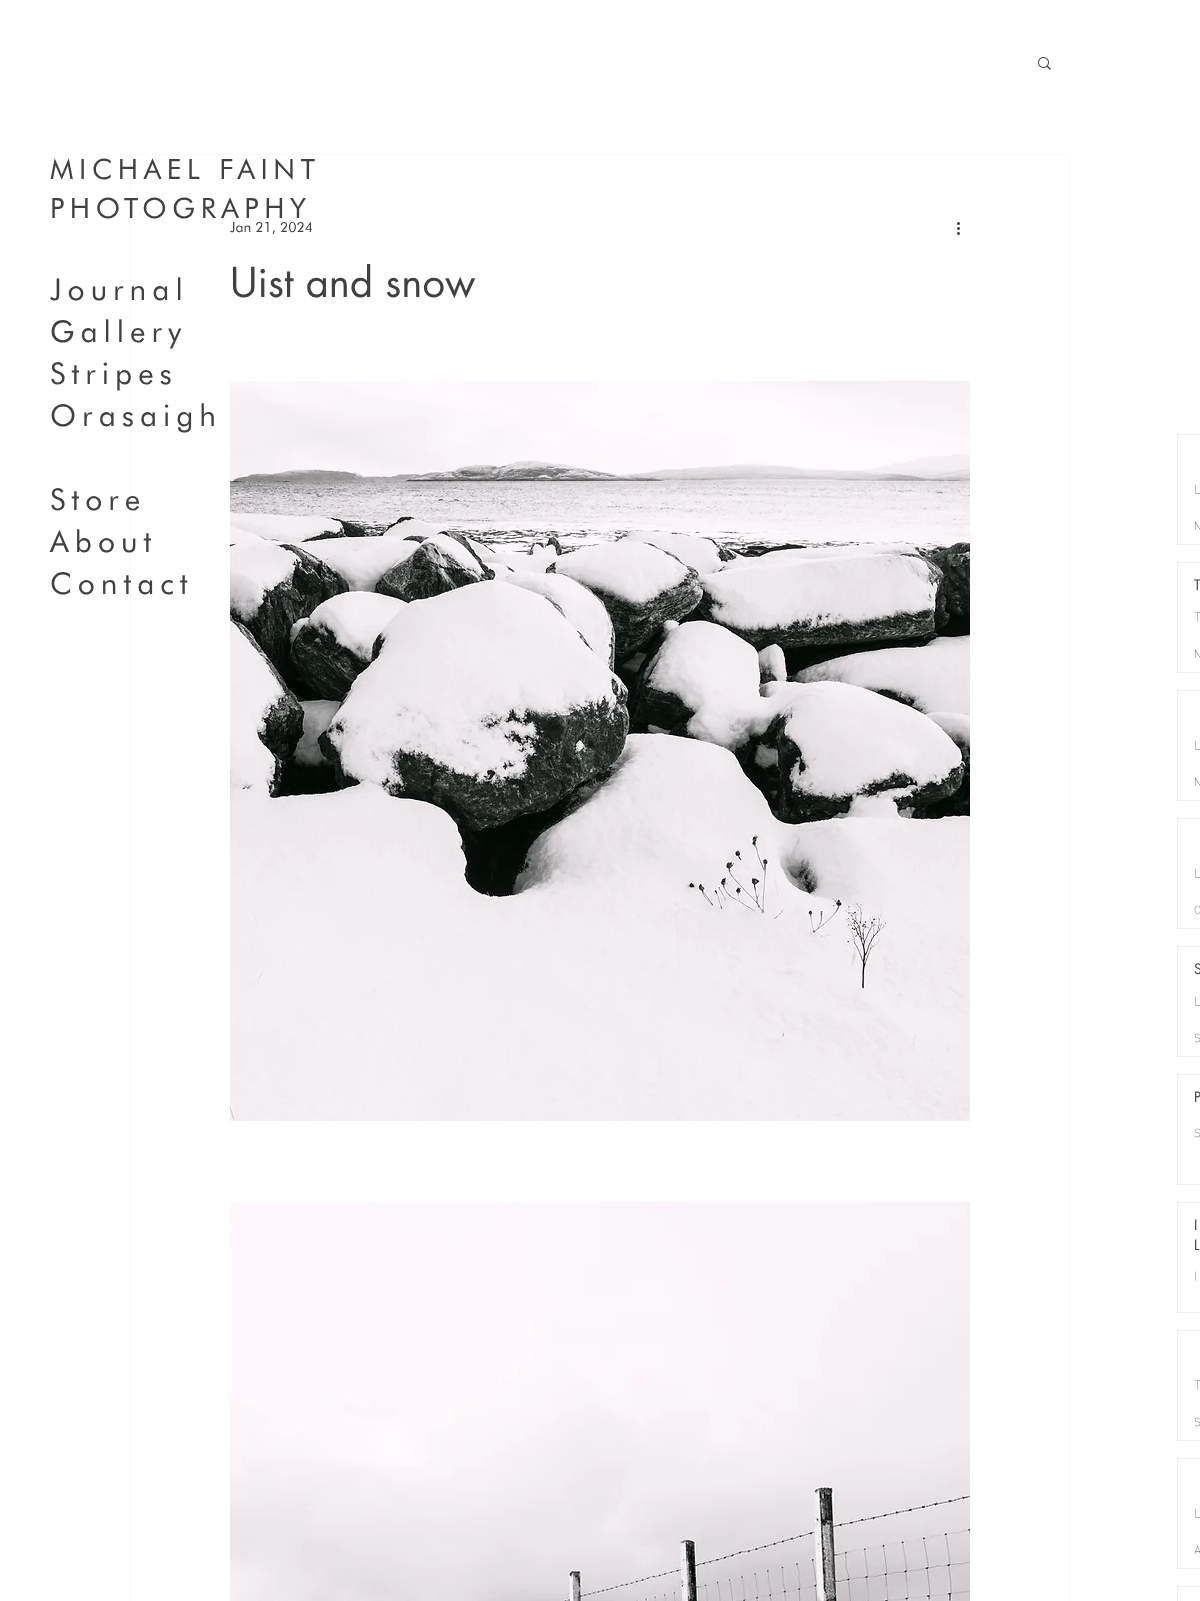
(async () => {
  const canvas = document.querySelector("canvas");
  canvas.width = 1200;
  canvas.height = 1601;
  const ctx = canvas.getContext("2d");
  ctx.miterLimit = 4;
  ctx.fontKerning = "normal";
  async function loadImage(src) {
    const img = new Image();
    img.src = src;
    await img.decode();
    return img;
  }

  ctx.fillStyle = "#ffffff";
  ctx.fillRect(0, 0, 1200, 1601);
  ctx.drawImage(await loadImage("img/1.png"), 1038, 57, 13, 13);
  ctx.strokeStyle = "#f9f9f9";
  ctx.strokeRect(130.5, 154.5, 939, 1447);
  ctx.drawImage(await loadImage("img/2.png"), 957, 222, 3, 13);
  ctx.drawImage(await loadImage("img/3.png"), 230, 381, 740, 740);
  ctx.drawImage(await loadImage("img/4.png"), 230, 1202, 740, 399);
  ctx.strokeStyle = "#eeecec";
  ctx.strokeRect(1177.5, 434.5, 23, 110);
  ctx.strokeRect(1177.5, 562.5, 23, 110);
  ctx.strokeRect(1177.5, 690.5, 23, 110);
  ctx.strokeRect(1177.5, 818.5, 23, 110);
  ctx.strokeRect(1177.5, 946.5, 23, 110);
  ctx.strokeRect(1177.5, 1074.5, 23, 110);
  ctx.strokeRect(1177.5, 1202.5, 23, 110);
  ctx.strokeRect(1177.5, 1330.5, 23, 110);
  ctx.strokeRect(1177.5, 1458.5, 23, 110);
  ctx.strokeRect(1177.5, 1586.5, 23, 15);
  ctx.letterSpacing = "5.6px";
  ctx.font = "28px 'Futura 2'";
  ctx.fillStyle = "#414141";
  ctx.fillText("MICHAEL FAINT", 50, 179);
  ctx.fillText("PHOTOGRAPHY", 50, 218);
  ctx.letterSpacing = "6px";
  ctx.font = "30px 'Futura 2'";
  for (const [text, x, y] of [
    ["Journal", 50, 300],
    ["Gallery", 50, 342],
    ["Stripes", 50, 384],
    ["Orasaigh", 50, 426],
    ["Store", 50, 510],
    ["About", 50, 552],
    ["Contact", 50, 594],
  ]) {
    ctx.fillText(text, x, y);
  }
  ctx.letterSpacing = "0px";
  ctx.font = "14px 'Futura 2'";
  ctx.fillText("Jan 21, 2024", 230, 232);
  ctx.font = "40px futura";
  ctx.fillText("Uist and snow", 230, 297);
  ctx.font = "200 14px 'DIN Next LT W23'";
  ctx.fillStyle = "#8f6b54";
  ctx.fillText("L", 1194, 494);
  ctx.font = "200 12px 'DIN Next LT W23'";
  ctx.fillStyle = "#414141";
  ctx.fillText("N", 1194, 530);
  ctx.font = "14px futura";
  ctx.fillText("T", 1194, 590);
  ctx.font = "200 14px 'DIN Next LT W23'";
  ctx.fillStyle = "#8f6b54";
  ctx.fillText("T", 1194, 622);
  ctx.font = "200 12px 'DIN Next LT W23'";
  ctx.fillStyle = "#414141";
  ctx.fillText("N", 1194, 658);
  ctx.font = "200 14px 'DIN Next LT W23'";
  ctx.fillStyle = "#8f6b54";
  ctx.fillText("L", 1194, 750);
  ctx.font = "200 12px 'DIN Next LT W23'";
  ctx.fillStyle = "#414141";
  ctx.fillText("N", 1194, 786);
  ctx.font = "200 14px 'DIN Next LT W23'";
  ctx.fillStyle = "#8f6b54";
  ctx.fillText("L", 1194, 878);
  ctx.font = "200 12px 'DIN Next LT W23'";
  ctx.fillStyle = "#414141";
  ctx.fillText("O", 1194, 914);
  ctx.font = "14px futura";
  ctx.fillText("S", 1194, 974);
  ctx.font = "200 14px 'DIN Next LT W23'";
  ctx.fillStyle = "#8f6b54";
  ctx.fillText("L", 1194, 1006);
  ctx.font = "200 12px 'DIN Next LT W23'";
  ctx.fillStyle = "#414141";
  ctx.fillText("S", 1194, 1042);
  ctx.font = "14px futura";
  ctx.fillText("P", 1194, 1102);
  ctx.font = "200 12px 'DIN Next LT W23'";
  ctx.fillText("S", 1194, 1137);
  ctx.font = "14px futura";
  ctx.fillText("I", 1194, 1230);
  ctx.fillText("L", 1194, 1250);
  ctx.font = "200 14px 'DIN Next LT W23'";
  ctx.fillStyle = "#8f6b54";
  ctx.fillText("I", 1194, 1281);
  ctx.fillText("T", 1194, 1390);
  ctx.font = "200 12px 'DIN Next LT W23'";
  ctx.fillStyle = "#414141";
  ctx.fillText("S", 1194, 1426);
  ctx.font = "200 14px 'DIN Next LT W23'";
  ctx.fillStyle = "#8f6b54";
  ctx.fillText("L", 1194, 1518);
  ctx.font = "200 12px 'DIN Next LT W23'";
  ctx.fillStyle = "#414141";
  ctx.fillText("A", 1194, 1554);
})();
